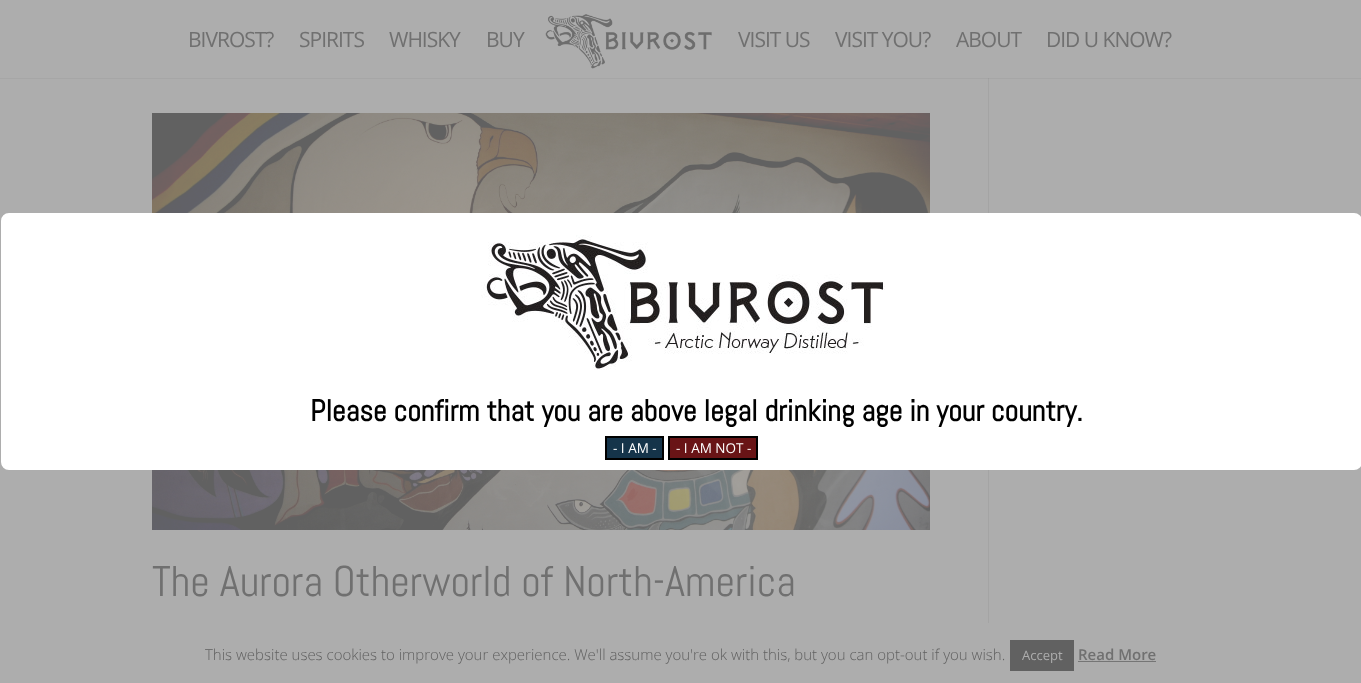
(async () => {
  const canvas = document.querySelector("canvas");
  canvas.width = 1361;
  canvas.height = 683;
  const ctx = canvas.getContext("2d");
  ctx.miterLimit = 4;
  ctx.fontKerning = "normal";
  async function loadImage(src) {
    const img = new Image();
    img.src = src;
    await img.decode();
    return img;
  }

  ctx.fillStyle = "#adadad";
  ctx.fillRect(0, 0, 1361, 683);
  ctx.fillStyle = "#a6a6a6";
  ctx.fillRect(0, 78, 1361, 1);
  ctx.drawImage(await loadImage("img/1.png"), 545, 14, 167, 55);
  ctx.drawImage(await loadImage("img/2.png"), 152, 113, 778, 417);
  ctx.fillStyle = "#a4a4a4";
  ctx.fillRect(988, 79, 1, 544);
  ctx.fillStyle = "#9e9e9e";
  ctx.fillRect(988, 78, 1, 1);
  ctx.fillStyle = "#ffffff";
  ctx.beginPath();
  ctx.roundRect(2.5, 214.5, 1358, 254, 6.5);
  ctx.fill();
  ctx.strokeStyle = "#ffffff";
  ctx.lineWidth = 3;
  ctx.stroke();
  ctx.drawImage(await loadImage("img/3.png"), 481, 235, 404, 135);
  ctx.fillStyle = "#15344a";
  ctx.beginPath();
  ctx.rect(606, 437, 57, 22);
  ctx.fill();
  ctx.strokeStyle = "#000000";
  ctx.lineWidth = 2;
  ctx.stroke();
  ctx.fillStyle = "#691416";
  ctx.beginPath();
  ctx.rect(669, 437, 88, 22);
  ctx.fill();
  ctx.stroke();
  ctx.fillStyle = "#616161";
  ctx.fillRect(1010, 640, 64, 31);
  ctx.fillStyle = "#757575";
  ctx.fillRect(1078, 661, 78, 1);
  ctx.letterSpacing = "-1px";
  ctx.font = "21px Open Sans";
  ctx.fillStyle = "#707070";
  for (const [text, x, y] of [
    ["BIVROST?", 188, 47],
    ["SPIRITS", 299, 47],
    ["WHISKY", 389, 47],
    ["BUY", 486, 47],
    ["VISIT US", 738, 47],
    ["VISIT YOU?", 835, 47],
    ["ABOUT", 956, 47],
    ["DID U KNOW?", 1046, 47],
  ]) {
    ctx.fillText(text, x, y);
  }
  ctx.letterSpacing = "0px";
  ctx.font = "43px Abel";
  ctx.fillText("The Aurora Otherworld of North-America", 152, 596);
  ctx.font = "bold 30px Abel";
  ctx.fillStyle = "#000000";
  ctx.fillText("Please confirm that you are above legal drinking age in your country.", 310, 421);
  ctx.font = "13.5px Open Sans";
  ctx.fillStyle = "#ffffff";
  ctx.fillText("- I AM -", 613, 453);
  ctx.fillText("- I AM NOT -", 676, 453);
  ctx.font = "300 15px Open Sans";
  ctx.fillStyle = "#616161";
  ctx.fillText("This website uses cookies to improve your experience. We'll assume you're ok with this, but you can opt-out if you wish.", 205, 660);
  ctx.font = "13px Open Sans";
  ctx.fillStyle = "#adadad";
  ctx.fillText("Accept", 1022, 660);
  ctx.font = "600 15px Open Sans";
  ctx.fillStyle = "#707070";
  ctx.fillText("Read More", 1078, 660);
})();
